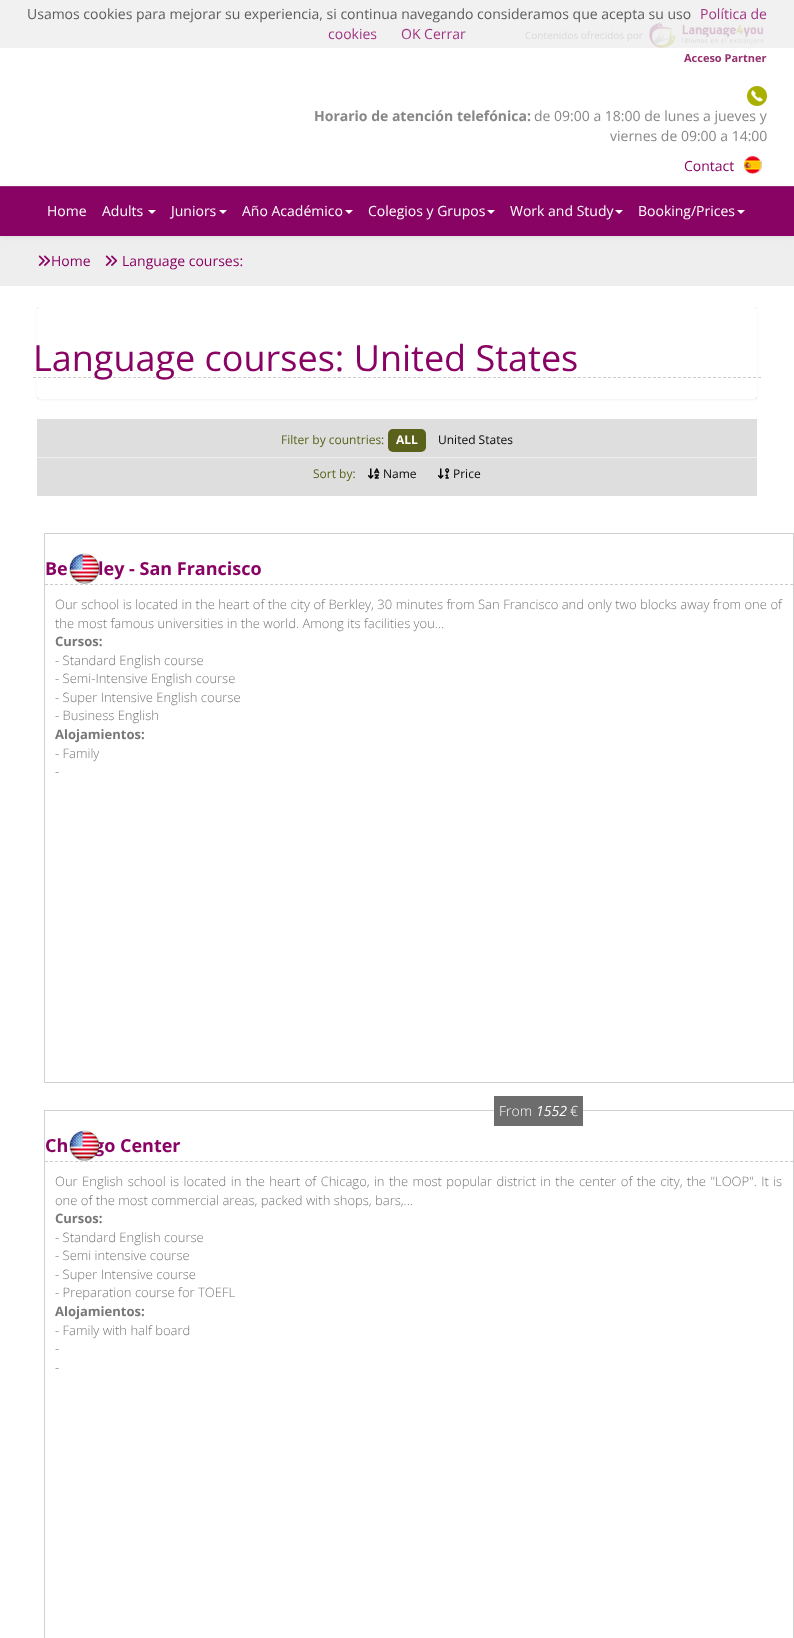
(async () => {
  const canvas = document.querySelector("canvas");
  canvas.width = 794;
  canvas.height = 1638;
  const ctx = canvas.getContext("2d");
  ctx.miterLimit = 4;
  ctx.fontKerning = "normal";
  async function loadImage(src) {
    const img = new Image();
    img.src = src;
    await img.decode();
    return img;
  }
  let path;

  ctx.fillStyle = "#ffffff";
  ctx.fillRect(0, 0, 794, 1638);
  ctx.fillStyle = "#f1f1f1";
  ctx.fillRect(0, 0, 794, 48);
  ctx.drawImage(await loadImage("img/1.png"), 648, 21, 116, 27);
  ctx.drawImage(await loadImage("img/2.png"), 747, 86, 20, 20);
  ctx.drawImage(await loadImage("img/3.png"), 744, 156, 18, 18);
  ctx.fillStyle = "#eeeeee";
  ctx.fillRect(0, 236, 794, 50);
  ctx.fillStyle = "rgba(0, 0, 0, 0.07)";
  ctx.filter = "blur(2.5px)";
  ctx.beginPath();
  ctx.rect(0, 187, 794, 50);
  ctx.fill();
  ctx.filter = "none";
  ctx.fillStyle = "#890364";
  ctx.fillRect(0, 187, 794, 49);
  ctx.fillStyle = "#9b297b";
  ctx.fillRect(0, 186, 794, 1);
  ctx.fillStyle = "#ffffff";
  path = new Path2D("M148 210H156L152 214Z");
  ctx.fill(path);
  path = new Path2D("M219 210H227L223 214Z");
  ctx.fill(path);
  path = new Path2D("M345 210H353L349 214Z");
  ctx.fill(path);
  path = new Path2D("M487 210H495L491 214Z");
  ctx.fill(path);
  path = new Path2D("M615 210H623L619 214Z");
  ctx.fill(path);
  path = new Path2D("M737 210H745L741 214Z");
  ctx.fill(path);
  ctx.drawImage(await loadImage("img/4.png"), 38, 255, 13, 11);
  ctx.drawImage(await loadImage("img/4.png"), 105, 255, 13, 11);
  ctx.fillStyle = "#eeeeee";
  ctx.fillRect(37, 307, 720, 92);
  ctx.fillStyle = "rgba(0, 0, 0, 0.05)";
  ctx.filter = "blur(1px)";
  ctx.beginPath();
  ctx.roundRect(37, 308, 720, 92, 4);
  ctx.fill();
  ctx.filter = "none";
  ctx.fillStyle = "#ffffff";
  ctx.beginPath();
  ctx.roundRect(37, 307, 720, 92, 4);
  ctx.fill();
  path = new Path2D("M33 377.5H761");
  ctx.strokeStyle = "#cccccc";
  ctx.setLineDash([3, 2]);
  ctx.stroke(path);
  ctx.fillStyle = "#dedede";
  ctx.fillRect(37, 419, 720, 77);
  ctx.fillStyle = "#5a611b";
  ctx.beginPath();
  ctx.roundRect(388, 429, 38, 23, 5);
  ctx.fill();
  ctx.fillStyle = "#eeeeee";
  ctx.fillRect(37, 457, 720, 1);
  ctx.drawImage(await loadImage("img/5.png"), 368, 468, 12, 11);
  ctx.drawImage(await loadImage("img/6.png"), 438, 468, 12, 11);
  ctx.strokeStyle = "#d0d0d0";
  ctx.setLineDash([]);
  ctx.strokeRect(44.5, 533.5, 749, 549);
  path = new Path2D("M45 584.5H793");
  ctx.strokeStyle = "#cccccc";
  ctx.setLineDash([3, 2]);
  ctx.stroke(path);
  ctx.strokeStyle = "#d0d0d0";
  ctx.setLineDash([]);
  ctx.strokeRect(44.5, 1110.5, 749, 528);
  ctx.fillStyle = "#6d6d6d";
  ctx.fillRect(494, 1096, 89, 30);
  path = new Path2D("M45 1161.5H793");
  ctx.strokeStyle = "#cccccc";
  ctx.setLineDash([3, 2]);
  ctx.stroke(path);
  ctx.font = "14px Open Sans";
  ctx.fillStyle = "#5c5c5c";
  ctx.fillText("Usamos cookies para mejorar su experiencia, si continua navegando consideramos que acepta su uso", 27, 19);
  ctx.fillStyle = "#a13583";
  for (const [text, x, y] of [
    ["Política de", 700, 19],
    ["cookies", 328, 39],
    ["OK Cerrar", 401, 39],
  ]) {
    ctx.fillText(text, x, y);
  }
  ctx.font = "10px Open Sans";
  ctx.fillStyle = "#d9d9d9";
  ctx.fillText("Contenidos ofrecidos por", 525, 39);
  ctx.font = "bold 11px Open Sans";
  ctx.fillStyle = "#94316e";
  ctx.fillText("Acceso Partner", 684, 62);
  ctx.font = "bold 14px Open Sans";
  ctx.fillStyle = "#878787";
  ctx.fillText("Horario de atención telefónica:", 314, 121);
  ctx.font = "14px Open Sans";
  ctx.fillText("de 09:00 a 18:00 de lunes a jueves y", 534, 121);
  ctx.fillText("viernes de 09:00 a 14:00", 610, 141);
  ctx.fillStyle = "#890364";
  ctx.fillText("Contact", 684, 171);
  ctx.fillStyle = "#ffffff";
  for (const [text, x, y] of [
    ["Home", 47, 216],
    ["Adults", 102, 216],
    ["Juniors", 171, 216],
    ["Año Académico", 242, 216],
    ["Colegios y Grupos", 368, 216],
    ["Work and Study", 510, 216],
    ["Booking/Prices", 638, 216],
  ]) {
    ctx.fillText(text, x, y);
  }
  ctx.fillStyle = "#890364";
  ctx.fillText("Home", 51, 266);
  ctx.fillText("Language courses:", 122, 266);
  ctx.font = "36px Open Sans";
  ctx.fillText("Language courses: United States", 33, 371);
  ctx.font = "12px Open Sans";
  ctx.fillStyle = "#59631a";
  ctx.fillText("Filter by countries:", 281, 444);
  ctx.font = "bold 12px Open Sans";
  ctx.fillStyle = "#ffffff";
  ctx.fillText("ALL", 396, 444);
  ctx.font = "12px Open Sans";
  ctx.fillStyle = "#070708";
  ctx.fillText("United States", 438, 444);
  ctx.fillStyle = "#59631a";
  ctx.fillText("Sort by:", 313, 478);
  ctx.fillStyle = "#070708";
  ctx.fillText("Name", 383, 478);
  ctx.fillText("Price", 453, 478);
  ctx.font = "bold 18px Open Sans";
  ctx.fillStyle = "#890364";
  ctx.fillText("Be", 45, 575);
  ctx.fillText("ley - San Francisco", 98, 575);
  ctx.drawImage(await loadImage("img/7.png"), 69, 553, 31, 31);
  ctx.wordSpacing = "0.1px";
  ctx.font = "300 13px Open Sans";
  ctx.fillStyle = "#777777";
  ctx.fillText("Our school is located in the heart of the city of Berkley, 30 minutes from San Francisco and only two blocks away from one of", 55, 609);
  ctx.wordSpacing = "0px";
  ctx.fillText("the most famous universities in the world. Among its facilities you...", 55, 628);
  ctx.font = "bold 13px Open Sans";
  ctx.fillText("Cursos:", 55, 646);
  ctx.font = "300 13px Open Sans";
  for (const [text, x, y] of [
    ["- Standard English course", 55, 665],
    ["- Semi-Intensive English course", 55, 683],
    ["- Super Intensive English course", 55, 702],
    ["- Business English", 55, 720],
  ]) {
    ctx.fillText(text, x, y);
  }
  ctx.font = "bold 13px Open Sans";
  ctx.fillText("Alojamientos:", 55, 739);
  ctx.font = "300 13px Open Sans";
  ctx.fillText("- Family", 55, 758);
  ctx.fillText("-", 55, 776);
  ctx.font = "300 14px Open Sans";
  ctx.fillStyle = "#ffffff";
  ctx.fillText("From", 499, 1116);
  ctx.font = "italic 14px Open Sans";
  ctx.fillText("1552", 536, 1116);
  ctx.font = "300 14px Open Sans";
  ctx.fillText("€", 570, 1116);
  ctx.font = "bold 18px Open Sans";
  ctx.fillStyle = "#890364";
  ctx.fillText("Ch", 45, 1152);
  ctx.fillText("go Center", 94, 1152);
  ctx.drawImage(await loadImage("img/8.png"), 69, 1130, 31, 31);
  ctx.wordSpacing = "1px";
  ctx.font = "300 13px Open Sans";
  ctx.fillStyle = "#777777";
  ctx.fillText("Our English school is located in the heart of Chicago, in the most popular district in the center of the city, the \"LOOP\". It is", 55, 1186);
  ctx.wordSpacing = "0px";
  ctx.fillText("one of the most commercial areas, packed with shops, bars,...", 55, 1205);
  ctx.font = "bold 13px Open Sans";
  ctx.fillText("Cursos:", 55, 1223);
  ctx.font = "300 13px Open Sans";
  for (const [text, x, y] of [
    ["- Standard English course", 55, 1242],
    ["- Semi intensive course", 55, 1260],
    ["- Super Intensive course", 55, 1279],
    ["- Preparation course for TOEFL", 55, 1297],
  ]) {
    ctx.fillText(text, x, y);
  }
  ctx.font = "bold 13px Open Sans";
  ctx.fillText("Alojamientos:", 55, 1316);
  ctx.font = "300 13px Open Sans";
  for (const [text, x, y] of [
    ["- Family with half board", 55, 1335],
    ["-", 55, 1353],
    ["-", 55, 1372],
  ]) {
    ctx.fillText(text, x, y);
  }
})();
